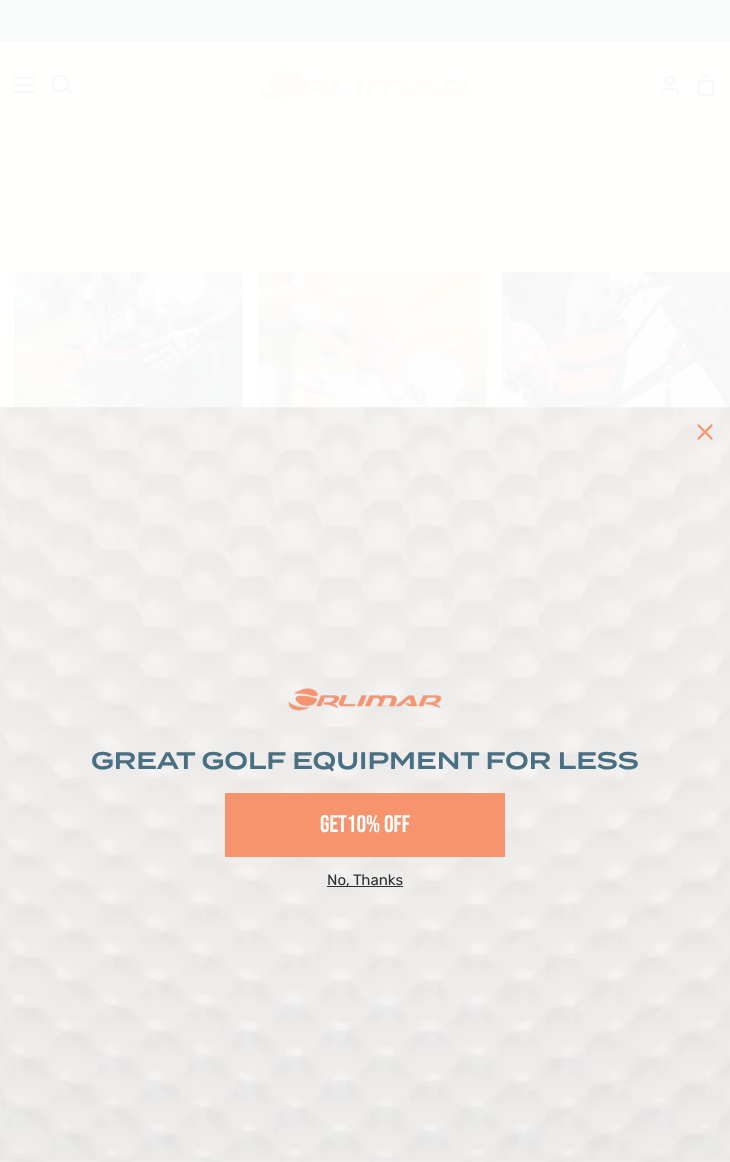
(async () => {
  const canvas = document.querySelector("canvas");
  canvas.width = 730;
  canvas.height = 1162;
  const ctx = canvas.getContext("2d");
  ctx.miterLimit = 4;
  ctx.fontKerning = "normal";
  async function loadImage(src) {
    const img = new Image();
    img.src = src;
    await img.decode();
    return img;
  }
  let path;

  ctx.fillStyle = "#fffffe";
  ctx.fillRect(0, 0, 730, 1162);
  for (const [x, y, w, h, color] of [
    [0, 0, 730, 42, "#fafbfb"],
    [14, 77, 20, 2, "#f8f8f8"],
    [14, 84, 20, 2, "#f8f8f8"],
    [14, 91, 20, 2, "#f8f8f8"],
  ]) {
    ctx.fillStyle = color;
    ctx.fillRect(x, y, w, h);
  }
  ctx.drawImage(await loadImage("img/1.png"), 52, 75, 20, 20);
  ctx.drawImage(await loadImage("img/2.png"), 259, 70, 211, 30);
  ctx.drawImage(await loadImage("img/3.png"), 661, 76, 18, 20);
  ctx.drawImage(await loadImage("img/4.png"), 698, 75, 16, 21);
  ctx.drawImage(await loadImage("img/5.png"), 15, 272, 228, 136);
  ctx.drawImage(await loadImage("img/6.png"), 258, 272, 229, 136);
  ctx.drawImage(await loadImage("img/7.png"), 502, 272, 228, 274);
  ctx.drawImage(await loadImage("img/8.png"), 14, 1160, 702, 2);
  ctx.drawImage(await loadImage("img/9.png"), 0, 407, 730, 755);
  path = new Path2D("M698.5 425.5L711.5 438.5M711.5 425.5L698.5 438.5");
  ctx.strokeStyle = "#f6946e";
  ctx.lineWidth = 2.3;
  ctx.lineCap = "round";
  ctx.stroke(path);
  ctx.drawImage(await loadImage("img/10.png"), 288, 688, 154, 23);
  ctx.fillStyle = "#f6946e";
  ctx.fillRect(225, 793, 280, 64);
  ctx.fillStyle = "rgba(0, 0, 0, 0.8)";
  ctx.fillRect(327, 886, 76, 1);
  ctx.font = "600 24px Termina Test";
  ctx.fillStyle = "#496f82";
  ctx.fillText("GREAT GOLF EQUIPMENT FOR LESS", 91, 769);
  ctx.font = "24px Bebas Neue";
  ctx.fillStyle = "#ffffff";
  ctx.fillText("GET10% OFF", 320, 832);
  ctx.font = "15px Rubik";
  ctx.fillStyle = "#2f2f2f";
  ctx.fillText("No, Thanks", 327, 885);
})();
